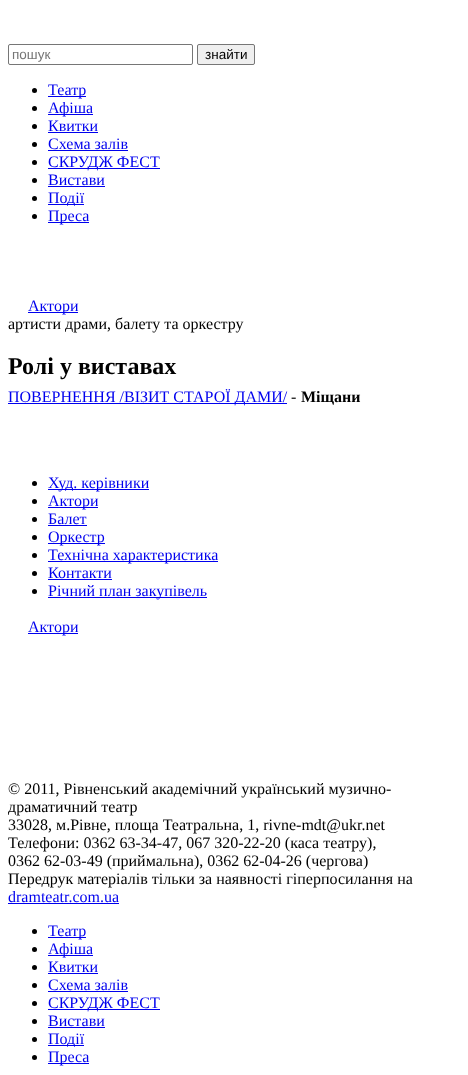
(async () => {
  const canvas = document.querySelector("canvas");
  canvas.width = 468;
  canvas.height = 1075;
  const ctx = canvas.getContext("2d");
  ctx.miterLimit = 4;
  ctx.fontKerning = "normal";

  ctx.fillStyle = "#ffffff";
  ctx.fillRect(0, 0, 468, 1075);
  ctx.beginPath();
  ctx.roundRect(8.5, 44.5, 184, 20, 1.5);
  ctx.strokeStyle = "#767676";
  ctx.stroke();
  ctx.fillStyle = "#efefef";
  ctx.beginPath();
  ctx.roundRect(197.5, 44.5, 57, 20, 1.5);
  ctx.fill();
  ctx.stroke();
  ctx.fillStyle = "#000000";
  ctx.beginPath();
  ctx.arc(34.5, 90.5, 2.5, 0, Math.PI * 2);
  ctx.fill();
  ctx.fillStyle = "#0000ee";
  ctx.fillRect(48, 96, 38, 1);
  ctx.fillStyle = "#000000";
  ctx.beginPath();
  ctx.arc(34.5, 108.5, 2.5, 0, Math.PI * 2);
  ctx.fill();
  ctx.fillStyle = "#0000ee";
  ctx.fillRect(48, 114, 45, 1);
  ctx.fillStyle = "#000000";
  ctx.beginPath();
  ctx.arc(34.5, 126.5, 2.5, 0, Math.PI * 2);
  ctx.fill();
  ctx.fillStyle = "#0000ee";
  ctx.fillRect(48, 132, 50, 1);
  ctx.fillStyle = "#000000";
  ctx.beginPath();
  ctx.arc(34.5, 144.5, 2.5, 0, Math.PI * 2);
  ctx.fill();
  ctx.fillStyle = "#0000ee";
  ctx.fillRect(48, 150, 80, 1);
  ctx.fillStyle = "#000000";
  ctx.beginPath();
  ctx.arc(34.5, 162.5, 2.5, 0, Math.PI * 2);
  ctx.fill();
  ctx.fillStyle = "#0000ee";
  ctx.fillRect(48, 168, 112, 1);
  ctx.fillStyle = "#000000";
  ctx.beginPath();
  ctx.arc(34.5, 180.5, 2.5, 0, Math.PI * 2);
  ctx.fill();
  ctx.fillStyle = "#0000ee";
  ctx.fillRect(48, 186, 57, 1);
  ctx.fillStyle = "#000000";
  ctx.beginPath();
  ctx.arc(34.5, 198.5, 2.5, 0, Math.PI * 2);
  ctx.fill();
  ctx.fillStyle = "#0000ee";
  ctx.fillRect(48, 204, 36, 1);
  ctx.fillStyle = "#000000";
  ctx.beginPath();
  ctx.arc(34.5, 216.5, 2.5, 0, Math.PI * 2);
  ctx.fill();
  for (const [x, y, w, h, color] of [
    [48, 222, 41, 1, "#0000ee"],
    [28, 312, 50, 1, "#0000ee"],
    [8, 403, 279, 1, "#0000ee"],
  ]) {
    ctx.fillStyle = color;
    ctx.fillRect(x, y, w, h);
  }
  ctx.fillStyle = "#000000";
  ctx.beginPath();
  ctx.arc(34.5, 483.5, 2.5, 0, Math.PI * 2);
  ctx.fill();
  ctx.fillStyle = "#0000ee";
  ctx.fillRect(48, 489, 101, 1);
  ctx.fillStyle = "#000000";
  ctx.beginPath();
  ctx.arc(34.5, 501.5, 2.5, 0, Math.PI * 2);
  ctx.fill();
  ctx.fillStyle = "#0000ee";
  ctx.fillRect(48, 507, 50, 1);
  ctx.fillStyle = "#000000";
  ctx.beginPath();
  ctx.arc(34.5, 519.5, 2.5, 0, Math.PI * 2);
  ctx.fill();
  ctx.fillStyle = "#0000ee";
  ctx.fillRect(48, 525, 39, 1);
  ctx.fillStyle = "#000000";
  ctx.beginPath();
  ctx.arc(34.5, 537.5, 2.5, 0, Math.PI * 2);
  ctx.fill();
  ctx.fillStyle = "#0000ee";
  ctx.fillRect(48, 543, 57, 1);
  ctx.fillStyle = "#000000";
  ctx.beginPath();
  ctx.arc(34.5, 555.5, 2.5, 0, Math.PI * 2);
  ctx.fill();
  ctx.fillStyle = "#0000ee";
  ctx.fillRect(48, 561, 170, 1);
  ctx.fillStyle = "#000000";
  ctx.beginPath();
  ctx.arc(34.5, 573.5, 2.5, 0, Math.PI * 2);
  ctx.fill();
  ctx.fillStyle = "#0000ee";
  ctx.fillRect(48, 579, 64, 1);
  ctx.fillStyle = "#000000";
  ctx.beginPath();
  ctx.arc(34.5, 591.5, 2.5, 0, Math.PI * 2);
  ctx.fill();
  for (const [x, y, w, h, color] of [
    [48, 597, 159, 1, "#0000ee"],
    [28, 633, 50, 1, "#0000ee"],
    [8, 903, 111, 1, "#0000ee"],
  ]) {
    ctx.fillStyle = color;
    ctx.fillRect(x, y, w, h);
  }
  ctx.fillStyle = "#000000";
  ctx.beginPath();
  ctx.arc(34.5, 931.5, 2.5, 0, Math.PI * 2);
  ctx.fill();
  ctx.fillStyle = "#0000ee";
  ctx.fillRect(48, 937, 38, 1);
  ctx.fillStyle = "#000000";
  ctx.beginPath();
  ctx.arc(34.5, 949.5, 2.5, 0, Math.PI * 2);
  ctx.fill();
  ctx.fillStyle = "#0000ee";
  ctx.fillRect(48, 955, 45, 1);
  ctx.fillStyle = "#000000";
  ctx.beginPath();
  ctx.arc(34.5, 967.5, 2.5, 0, Math.PI * 2);
  ctx.fill();
  ctx.fillStyle = "#0000ee";
  ctx.fillRect(48, 973, 50, 1);
  ctx.fillStyle = "#000000";
  ctx.beginPath();
  ctx.arc(34.5, 985.5, 2.5, 0, Math.PI * 2);
  ctx.fill();
  ctx.fillStyle = "#0000ee";
  ctx.fillRect(48, 991, 80, 1);
  ctx.fillStyle = "#000000";
  ctx.beginPath();
  ctx.arc(34.5, 1003.5, 2.5, 0, Math.PI * 2);
  ctx.fill();
  ctx.fillStyle = "#0000ee";
  ctx.fillRect(48, 1009, 112, 1);
  ctx.fillStyle = "#000000";
  ctx.beginPath();
  ctx.arc(34.5, 1021.5, 2.5, 0, Math.PI * 2);
  ctx.fill();
  ctx.fillStyle = "#0000ee";
  ctx.fillRect(48, 1027, 57, 1);
  ctx.fillStyle = "#000000";
  ctx.beginPath();
  ctx.arc(34.5, 1039.5, 2.5, 0, Math.PI * 2);
  ctx.fill();
  ctx.fillStyle = "#0000ee";
  ctx.fillRect(48, 1045, 36, 1);
  ctx.fillStyle = "#000000";
  ctx.beginPath();
  ctx.arc(34.5, 1057.5, 2.5, 0, Math.PI * 2);
  ctx.fill();
  ctx.fillStyle = "#0000ee";
  ctx.fillRect(48, 1063, 41, 1);
  ctx.font = "13.5px Liberation Sans";
  ctx.fillStyle = "#757575";
  ctx.fillText("пошук", 12, 59);
  ctx.fillStyle = "#000000";
  ctx.fillText("знайти", 205, 59);
  ctx.font = "16px Liberation Serif";
  ctx.fillStyle = "#0000ee";
  for (const [text, x, y] of [
    ["Театр", 48, 95],
    ["Афіша", 48, 113],
    ["Квитки", 48, 131],
    ["Схема залів", 48, 149],
    ["СКРУДЖ ФЕСТ", 48, 167],
    ["Вистави", 48, 185],
    ["Події", 48, 203],
    ["Преса", 48, 221],
    ["Актори", 28, 311],
  ]) {
    ctx.fillText(text, x, y);
  }
  ctx.fillStyle = "#000000";
  ctx.fillText("артисти драми, балету та оркестру", 8, 329);
  ctx.font = "bold 24px Liberation Serif";
  ctx.fillText("Ролі у виставах", 8, 374);
  ctx.font = "16px Liberation Serif";
  ctx.fillStyle = "#0000ee";
  ctx.fillText("ПОВЕРНЕННЯ /ВІЗИТ СТАРОЇ ДАМИ/", 8, 402);
  ctx.fillStyle = "#000000";
  ctx.fillText("-", 291, 402);
  ctx.font = "bold 16px Liberation Serif";
  ctx.fillText("Міщани", 301, 402);
  ctx.font = "16px Liberation Serif";
  ctx.fillStyle = "#0000ee";
  for (const [text, x, y] of [
    ["Худ. керівники", 48, 488],
    ["Актори", 48, 506],
    ["Балет", 48, 524],
    ["Оркестр", 48, 542],
    ["Технічна характеристика", 48, 560],
    ["Контакти", 48, 578],
    ["Річний план закупівель", 48, 596],
    ["Актори", 28, 632],
  ]) {
    ctx.fillText(text, x, y);
  }
  ctx.fillStyle = "#000000";
  for (const [text, x, y] of [
    ["© 2011, Рівненський академічний український музично-", 8, 794],
    ["драматичний театр", 8, 812],
    ["33028, м.Рівне, площа Театральна, 1, rivne-mdt@ukr.net", 8, 830],
    ["Телефони: 0362 63-34-47, 067 320-22-20 (каса театру),", 8, 848],
    ["0362 62-03-49 (приймальна), 0362 62-04-26 (чергова)", 8, 866],
    ["Передрук матеріалів тільки за наявності гіперпосилання на", 8, 884],
  ]) {
    ctx.fillText(text, x, y);
  }
  ctx.fillStyle = "#0000ee";
  for (const [text, x, y] of [
    ["dramteatr.com.ua", 8, 902],
    ["Театр", 48, 936],
    ["Афіша", 48, 954],
    ["Квитки", 48, 972],
    ["Схема залів", 48, 990],
    ["СКРУДЖ ФЕСТ", 48, 1008],
    ["Вистави", 48, 1026],
    ["Події", 48, 1044],
    ["Преса", 48, 1062],
  ]) {
    ctx.fillText(text, x, y);
  }
})();
